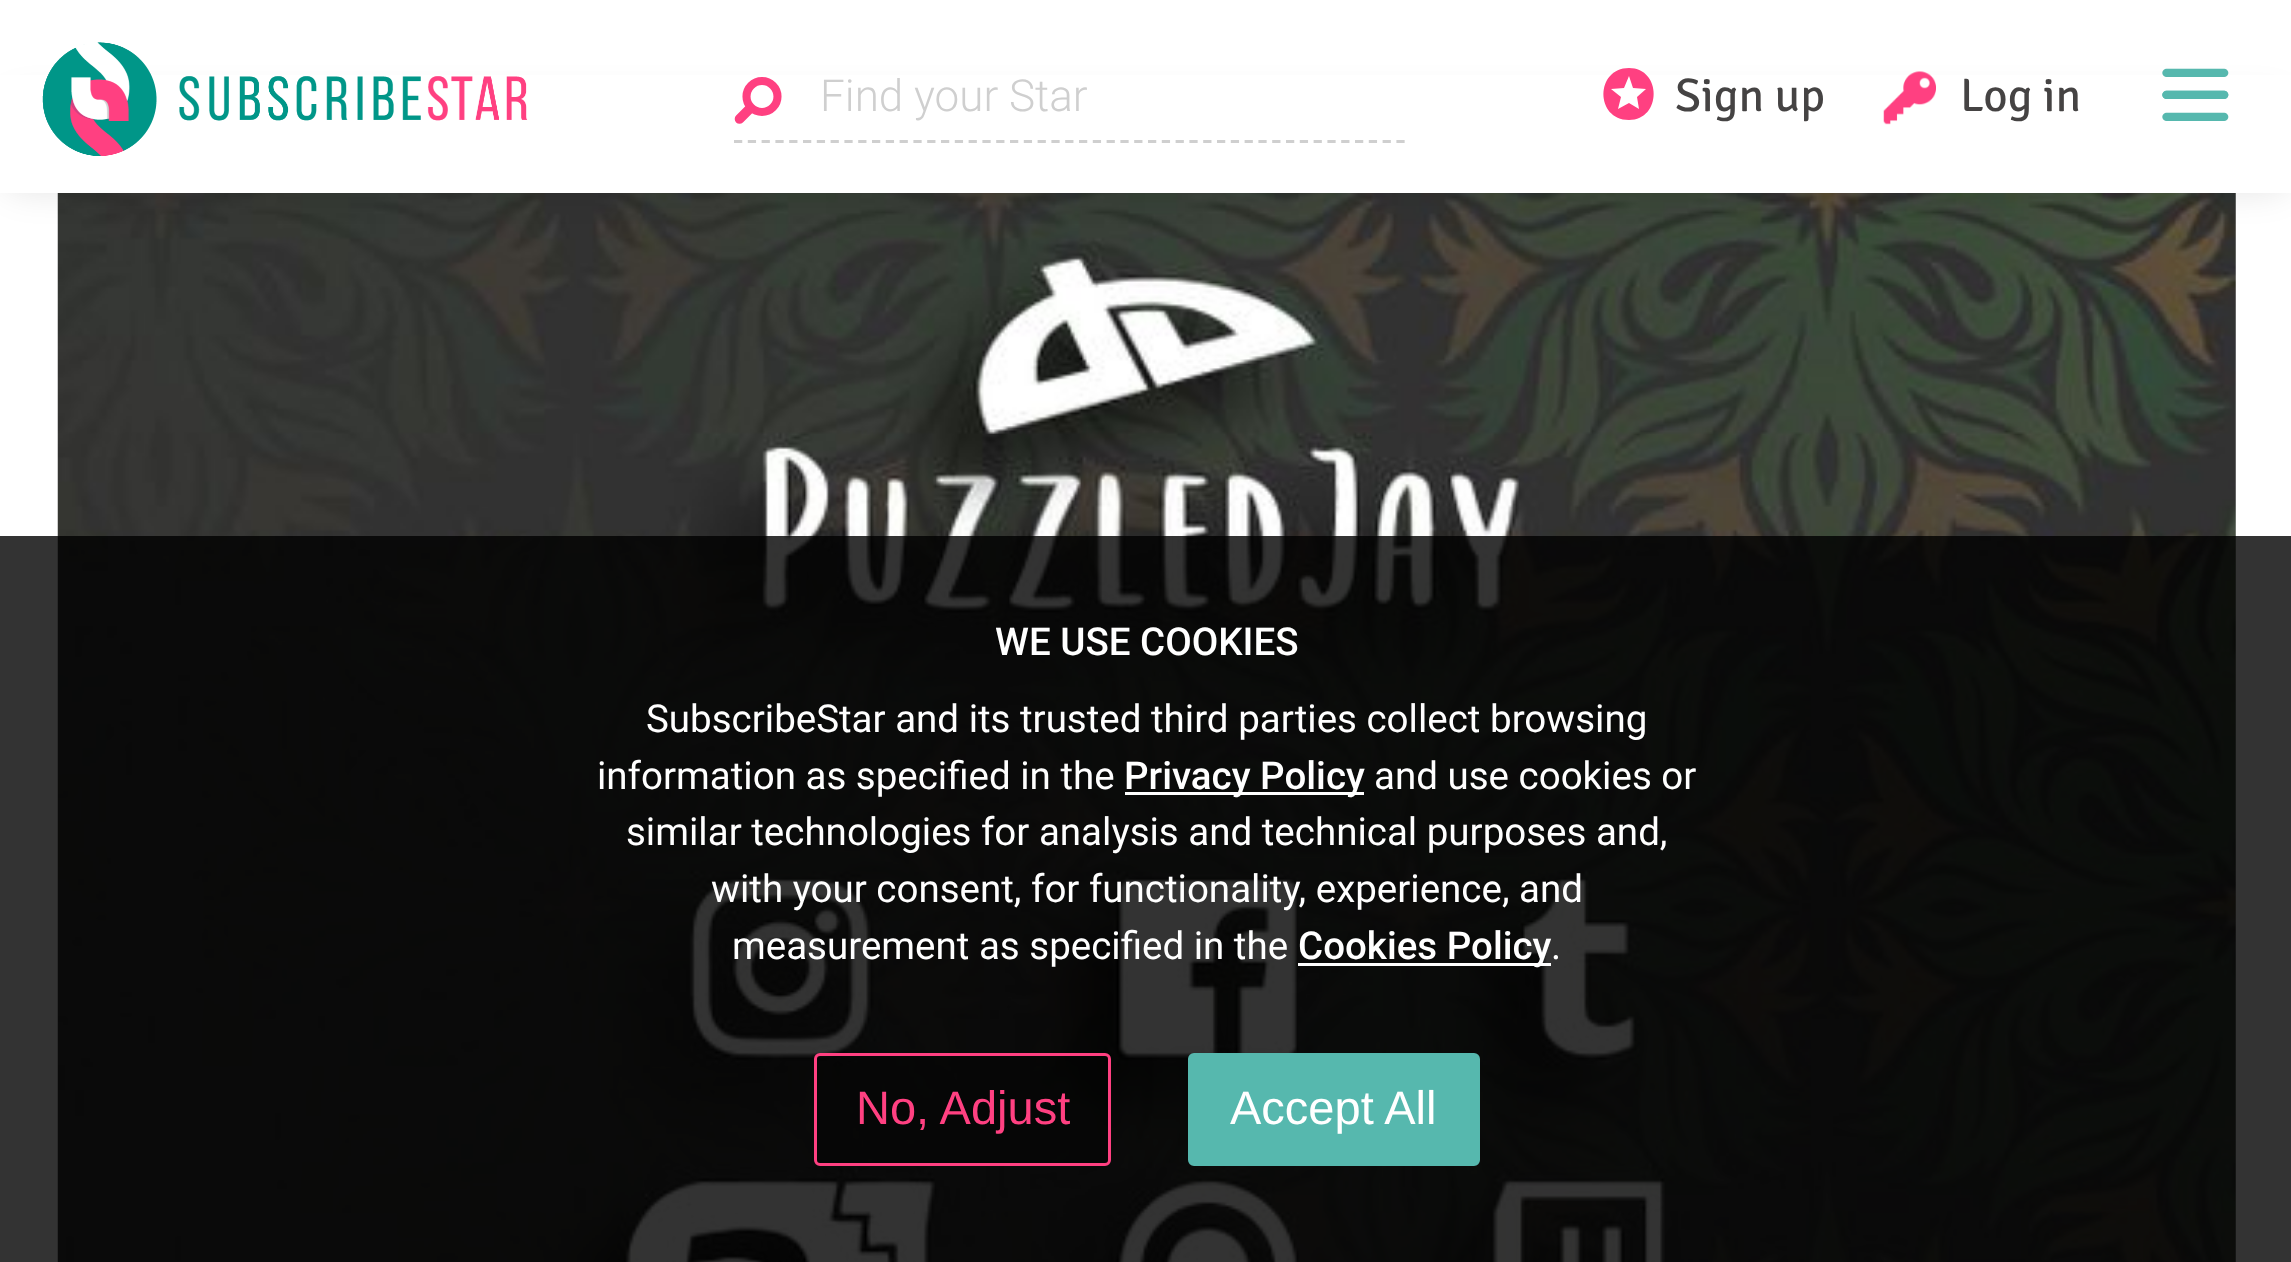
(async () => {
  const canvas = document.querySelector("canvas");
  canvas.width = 2291;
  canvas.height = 1262;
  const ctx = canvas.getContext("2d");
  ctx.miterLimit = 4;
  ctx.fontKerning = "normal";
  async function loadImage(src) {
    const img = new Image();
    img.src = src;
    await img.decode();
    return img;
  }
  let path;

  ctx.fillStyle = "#ffffff";
  ctx.fillRect(0, 0, 2291, 1262);
  ctx.drawImage(await loadImage("img/4.png"), 57, 193, 2179, 1069);
  ctx.fillStyle = "rgba(0, 0, 0, 0.1)";
  ctx.filter = "blur(16.5px)";
  ctx.beginPath();
  ctx.roundRect(0, 96, 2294, 97, 28);
  ctx.fill();
  ctx.filter = "none";
  ctx.fillStyle = "#ffffff";
  ctx.fillRect(0, 75, 2291, 118);
  ctx.drawImage(await loadImage("img/1.png"), 42, 42, 486, 114);
  path = new Path2D("M734 141.5H1405");
  ctx.strokeStyle = "#cfcfcf";
  ctx.lineWidth = 2.8;
  ctx.setLineDash([8.25, 5.55]);
  ctx.stroke(path);
  ctx.beginPath();
  ctx.arc(762, 96.5, 15.5, 0, Math.PI * 2);
  ctx.strokeStyle = "#ff4081";
  ctx.lineWidth = 8.1;
  ctx.setLineDash([]);
  ctx.stroke();
  path = new Path2D("M739.5 119L749.5 109");
  ctx.lineWidth = 9.6;
  ctx.lineCap = "round";
  ctx.stroke(path);
  ctx.fillStyle = "#ff4081";
  path = new Path2D("M1629 68C1595 68 1595 120 1629 120C1662 120 1662 68 1629 68ZM1639 109L1629 103L1618 109L1621 97L1611 89L1624 88L1629 76L1633 88L1646 89L1637 97Z");
  ctx.fill(path);
  ctx.drawImage(await loadImage("img/2.png"), 1883, 71, 53, 54);
  ctx.drawImage(await loadImage("img/3.png"), 2162, 68, 67, 53);
  for (const [x, y, w, h, color] of [
    [0, 536, 2291, 726, "rgba(0, 0, 0, 0.8)"],
    [1125, 792, 239, 3, "#ffffff"],
    [1298, 963, 253, 3, "#ffffff"],
  ]) {
    ctx.fillStyle = color;
    ctx.fillRect(x, y, w, h);
  }
  ctx.fillStyle = "rgba(0, 0, 0, 0.3)";
  ctx.beginPath();
  ctx.roundRect(815.5, 1054.5, 294, 110, 4.5);
  ctx.fill();
  ctx.lineWidth = 3;
  ctx.stroke();
  ctx.fillStyle = "#56b8ae";
  ctx.beginPath();
  ctx.roundRect(1189.5, 1054.5, 289, 110, 4.5);
  ctx.fill();
  ctx.strokeStyle = "#56b8ae";
  ctx.stroke();
  ctx.font = "300 44px Roboto";
  ctx.fillStyle = "#cfcfcf";
  ctx.fillText("Find your Star", 820, 111);
  ctx.font = "47px Signika Negative";
  ctx.fillStyle = "#454343";
  ctx.fillText("Sign up", 1675, 111);
  ctx.fillText("Log in", 1960, 111);
  ctx.font = "500 38.5px Roboto";
  ctx.fillStyle = "#ffffff";
  ctx.fillText("WE USE COOKIES", 995, 655);
  ctx.font = "38.5px Roboto";
  ctx.fillText("SubscribeStar and its trusted third parties collect browsing", 646, 732);
  ctx.fillText("information as specified in the", 597, 789);
  ctx.font = "500 38.5px Roboto";
  ctx.fillText("Privacy Policy", 1124, 789);
  ctx.font = "38.5px Roboto";
  for (const [text, x, y] of [
    ["and use cookies or", 1374, 789],
    ["similar technologies for analysis and technical purposes and,", 626, 845],
    ["with your consent, for functionality, experience, and", 711, 902],
    ["measurement as specified in the", 732, 959],
  ]) {
    ctx.fillText(text, x, y);
  }
  ctx.font = "500 38.5px Roboto";
  ctx.fillText("Cookies Policy", 1298, 959);
  ctx.font = "38.5px Roboto";
  ctx.fillText(".", 1551, 959);
  ctx.font = "47px Liberation Sans";
  ctx.fillStyle = "#ff4081";
  ctx.fillText("No, Adjust", 856, 1124);
  ctx.fillStyle = "#ffffff";
  ctx.fillText("Accept All", 1230, 1124);
})();
